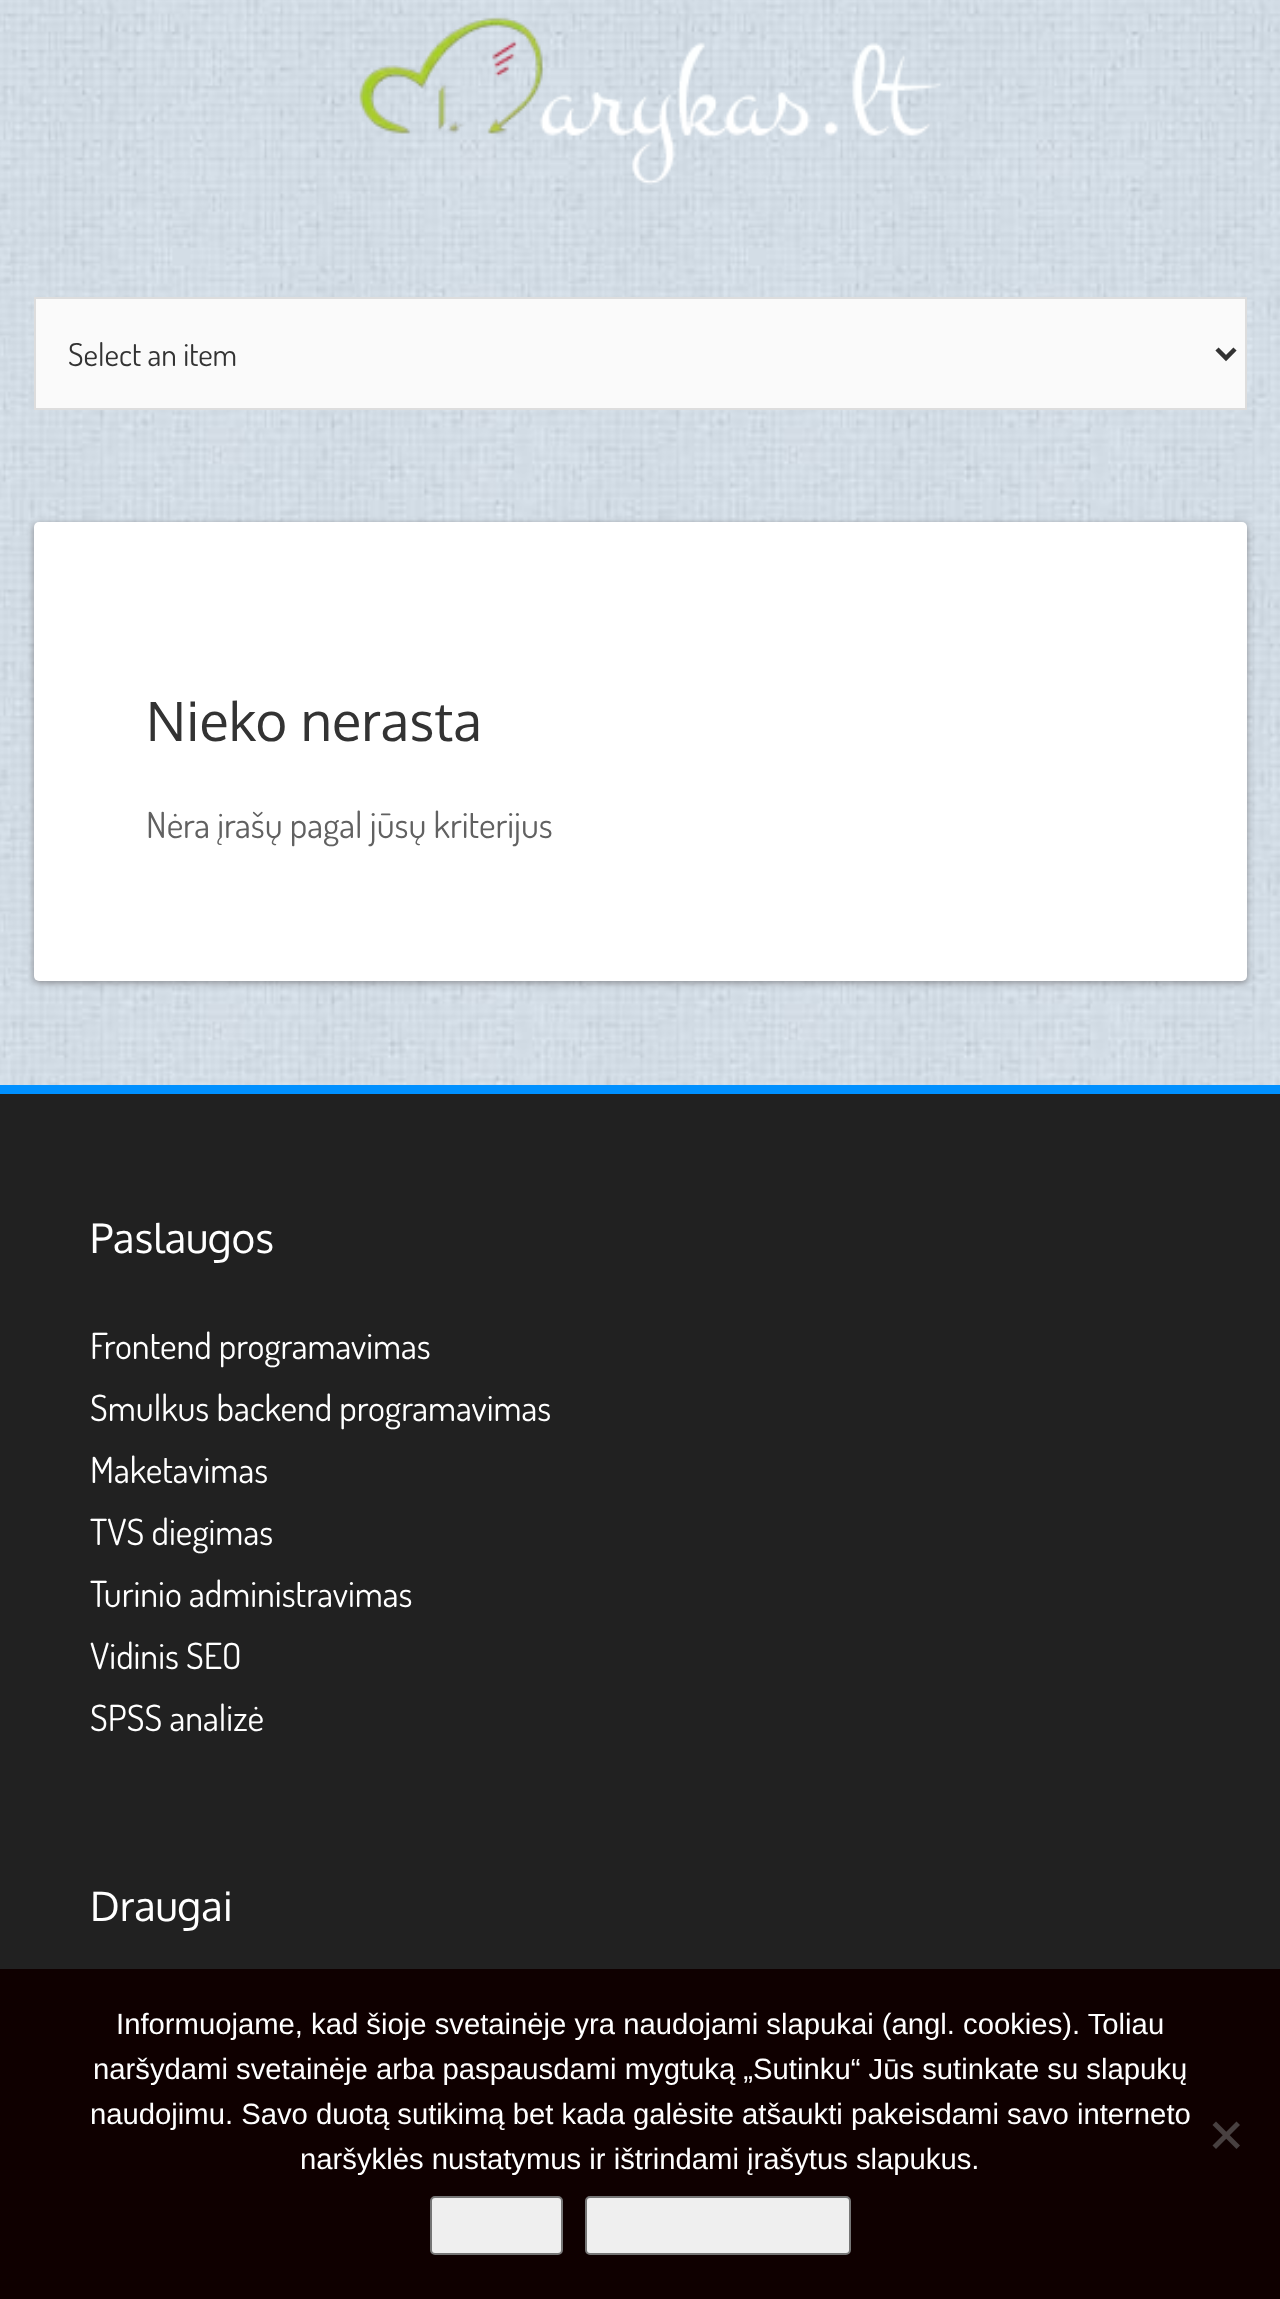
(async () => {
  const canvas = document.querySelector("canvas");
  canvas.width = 1280;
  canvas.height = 2299;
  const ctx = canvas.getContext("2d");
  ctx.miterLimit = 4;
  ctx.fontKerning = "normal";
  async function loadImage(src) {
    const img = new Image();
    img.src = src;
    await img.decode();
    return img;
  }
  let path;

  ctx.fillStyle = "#ffffff";
  ctx.fillRect(0, 0, 1280, 2299);
  ctx.drawImage(await loadImage("img/1.png"), 0, 0, 1280, 1085);
  ctx.drawImage(await loadImage("img/2.png"), 359, 17, 582, 168);
  ctx.fillStyle = "#fafafa";
  ctx.beginPath();
  ctx.rect(35, 298, 1211, 111);
  ctx.fill();
  ctx.strokeStyle = "#dddddd";
  ctx.lineWidth = 2;
  ctx.stroke();
  path = new Path2D("M1217 349L1226 358L1235 349");
  ctx.strokeStyle = "#333333";
  ctx.lineWidth = 4.5;
  ctx.stroke(path);
  ctx.fillStyle = "rgba(34, 25, 25, 0.4)";
  ctx.filter = "blur(3.5px)";
  ctx.beginPath();
  ctx.roundRect(34, 524, 1213, 459, 5);
  ctx.fill();
  ctx.filter = "none";
  ctx.fillStyle = "#ffffff";
  ctx.beginPath();
  ctx.roundRect(34, 522, 1213, 459, 5);
  ctx.fill();
  for (const [x, y, w, h, color] of [
    [0, 1094, 1280, 875, "#212121"],
    [0, 1085, 1280, 9, "#0090ff"],
    [0, 1969, 1280, 330, "#0f0000"],
  ]) {
    ctx.fillStyle = color;
    ctx.fillRect(x, y, w, h);
  }
  ctx.fillStyle = "#484040";
  path = new Path2D("M1236.5 2121.5L1240 2125L1216 2149L1212.5 2145.5Z");
  ctx.fill(path);
  path = new Path2D("M1212.5 2125L1216 2121.5L1240 2145.5L1236.5 2149Z");
  ctx.fill(path);
  ctx.fillStyle = "#efefef";
  ctx.beginPath();
  ctx.roundRect(431, 2197, 131, 57, 4);
  ctx.fill();
  ctx.strokeStyle = "#767676";
  ctx.lineWidth = 2;
  ctx.stroke();
  ctx.beginPath();
  ctx.roundRect(586, 2197, 264, 57, 4);
  ctx.fill();
  ctx.stroke();
  ctx.font = "31.5px Dosis";
  ctx.fillStyle = "#333333";
  ctx.fillText("Select an item", 68, 366);
  ctx.font = "54px Oxygen";
  ctx.fillText("Nieko nerasta", 146, 741);
  ctx.font = "36px Dosis";
  ctx.fillStyle = "#616161";
  ctx.fillText("Nėra įrašų pagal jūsų kriterijus", 146, 838);
  ctx.font = "40.5px Oxygen";
  ctx.fillStyle = "#ffffff";
  ctx.fillText("Paslaugos", 90, 1253);
  ctx.font = "36px Dosis";
  for (const [text, x, y] of [
    ["Frontend programavimas", 90, 1359],
    ["Smulkus backend programavimas", 90, 1421],
    ["Maketavimas", 90, 1483],
    ["TVS diegimas", 90, 1545],
    ["Turinio administravimas", 90, 1607],
    ["Vidinis SEO", 90, 1669],
    ["SPSS analizė", 90, 1731],
  ]) {
    ctx.fillText(text, x, y);
  }
  ctx.font = "40.5px Oxygen";
  ctx.fillText("Draugai", 90, 1921);
  ctx.font = "29.25px Liberation Sans";
  for (const [text, x, y] of [
    ["Informuojame, kad šioje svetainėje yra naudojami slapukai (angl. cookies). Toliau", 116, 2034],
    ["naršydami svetainėje arba paspausdami mygtuką „Sutinku“ Jūs sutinkate su slapukų", 93, 2079],
    ["naudojimu. Savo duotą sutikimą bet kada galėsite atšaukti pakeisdami savo interneto", 90, 2124],
    ["naršyklės nustatymus ir ištrindami įrašytus slapukus.", 300, 2169],
  ]) {
    ctx.fillText(text, x, y);
  }
})();
